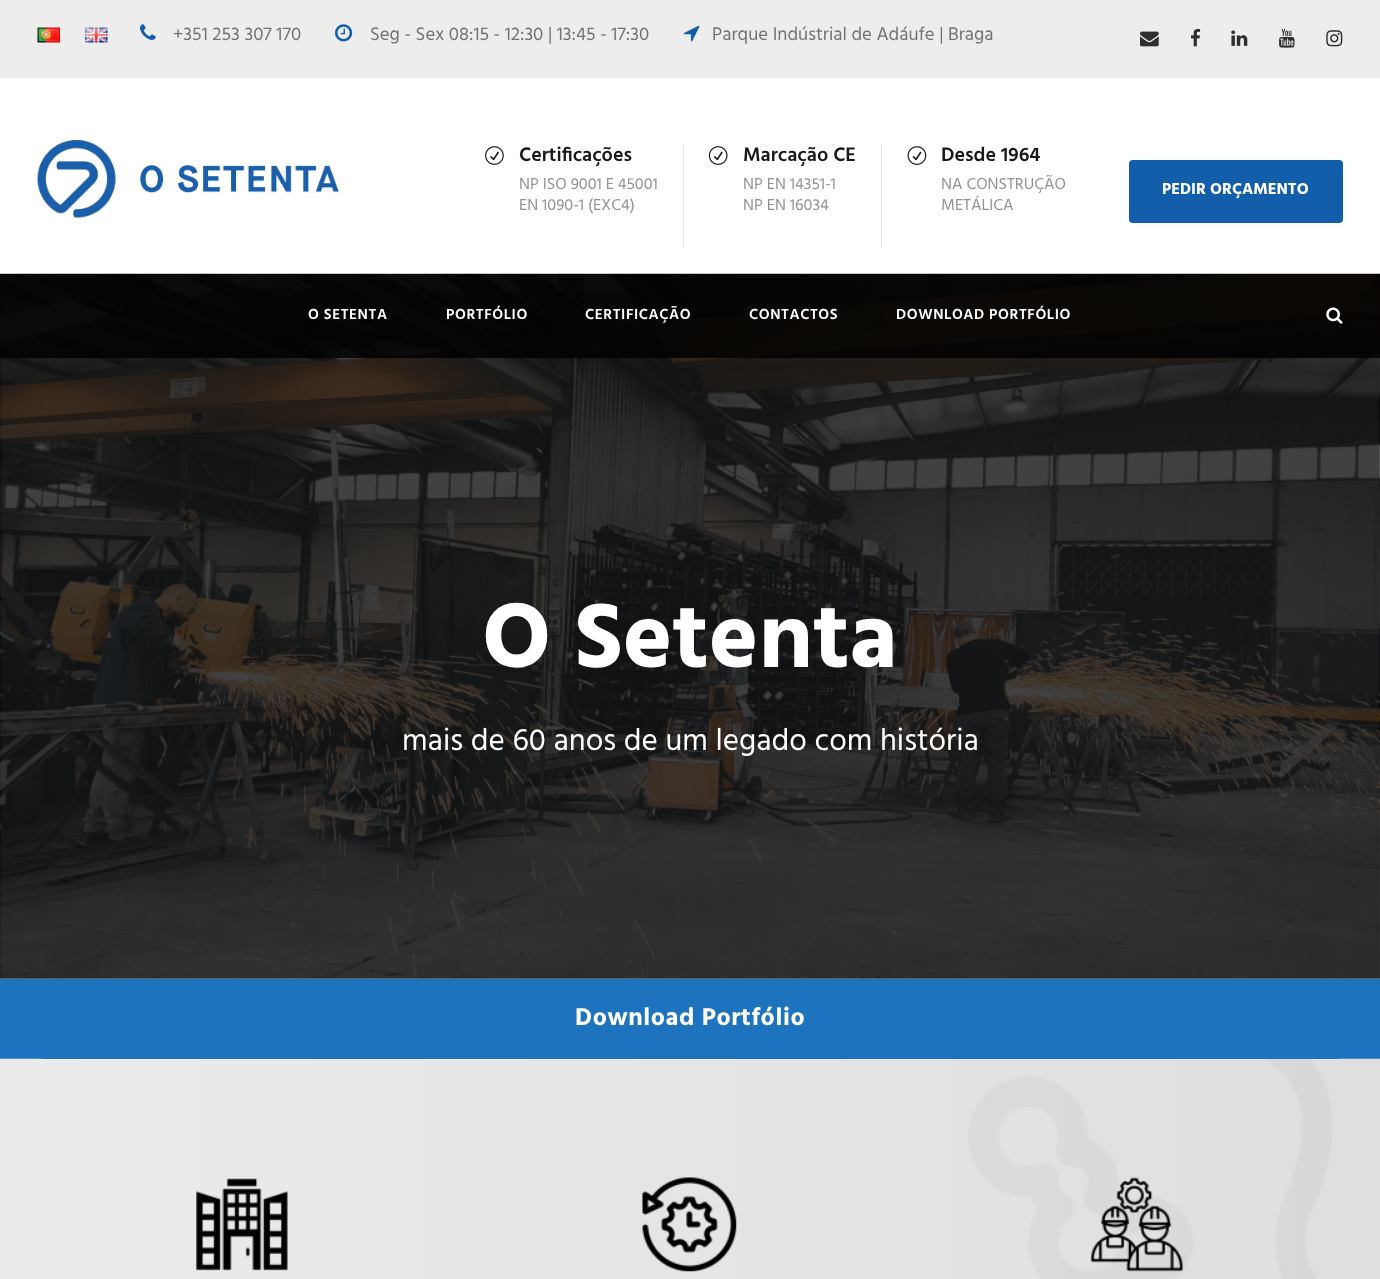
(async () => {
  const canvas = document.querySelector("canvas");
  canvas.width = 1380;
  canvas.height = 1279;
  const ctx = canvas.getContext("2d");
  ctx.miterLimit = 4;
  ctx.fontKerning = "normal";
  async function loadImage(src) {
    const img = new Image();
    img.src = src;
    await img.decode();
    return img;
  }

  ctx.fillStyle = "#ffffff";
  ctx.fillRect(0, 0, 1380, 1279);
  ctx.fillStyle = "#ededed";
  ctx.fillRect(0, 0, 1380, 78);
  ctx.drawImage(await loadImage("img/1.png"), 37, 27, 23, 16);
  ctx.drawImage(await loadImage("img/2.png"), 85, 27, 23, 16);
  ctx.drawImage(await loadImage("img/3.png"), 140, 24, 16, 16);
  ctx.drawImage(await loadImage("img/4.png"), 335, 24, 18, 18);
  ctx.drawImage(await loadImage("img/5.png"), 683, 25, 17, 17);
  ctx.drawImage(await loadImage("img/6.png"), 1140, 31, 19, 16);
  ctx.drawImage(await loadImage("img/7.png"), 1191, 28, 10, 19);
  ctx.drawImage(await loadImage("img/8.png"), 1231, 30, 17, 16);
  ctx.drawImage(await loadImage("img/9.png"), 1279, 28, 16, 20);
  ctx.drawImage(await loadImage("img/10.png"), 1326, 30, 17, 17);
  ctx.drawImage(await loadImage("img/11.png"), 37, 140, 302, 78);
  ctx.drawImage(await loadImage("img/12.png"), 485, 146, 19, 19);
  ctx.fillStyle = "#e6e6e6";
  ctx.fillRect(683, 144, 1, 104);
  ctx.drawImage(await loadImage("img/13.png"), 708, 146, 20, 19);
  ctx.fillRect(881, 144, 1, 104);
  ctx.drawImage(await loadImage("img/14.png"), 907, 146, 20, 19);
  ctx.fillStyle = "#135eab";
  ctx.beginPath();
  ctx.roundRect(1130.5, 161.5, 211, 60, 2.5);
  ctx.fill();
  ctx.strokeStyle = "#135eab";
  ctx.lineWidth = 3;
  ctx.stroke();
  ctx.drawImage(await loadImage("img/16.png"), 0, 273, 1380, 706);
  ctx.fillStyle = "rgba(0, 0, 0, 0.82)";
  ctx.fillRect(0, 274, 1380, 84);
  ctx.drawImage(await loadImage("img/15.png"), 1326, 307, 17, 17);
  ctx.fillStyle = "#1e73be";
  ctx.fillRect(0, 979, 1380, 80);
  ctx.drawImage(await loadImage("img/17.png"), 0, 1058, 1380, 221);
  ctx.beginPath();
  ctx.roundRect(38, 979, 1305, 80, 6);
  ctx.fill();
  ctx.drawImage(await loadImage("img/18.png"), 196, 1178, 92, 93);
  ctx.drawImage(await loadImage("img/19.png"), 642, 1177, 95, 95);
  ctx.drawImage(await loadImage("img/20.png"), 1090, 1177, 94, 95);
  ctx.font = "18.75px Hind";
  ctx.fillStyle = "#727272";
  for (const [text, x, y] of [
    ["+351 253 307 170", 173, 40],
    ["Seg - Sex 08:15 - 12:30 | 13:45 - 17:30", 370, 40],
    ["Parque Indústrial de Adáufe | Braga", 712, 40],
  ]) {
    ctx.fillText(text, x, y);
  }
  ctx.font = "600 20px Hind";
  ctx.fillStyle = "#191919";
  ctx.fillText("Certificações", 519, 161);
  ctx.font = "16.25px Hind";
  ctx.fillStyle = "#929292";
  ctx.fillText("NP ISO 9001 E 45001", 519, 189);
  ctx.fillText("EN 1090-1 (EXC4)", 519, 210);
  ctx.font = "600 20px Hind";
  ctx.fillStyle = "#191919";
  ctx.fillText("Marcação CE", 743, 161);
  ctx.font = "16.25px Hind";
  ctx.fillStyle = "#929292";
  ctx.fillText("NP EN 14351-1", 743, 189);
  ctx.fillText("NP EN 16034", 743, 210);
  ctx.font = "600 20px Hind";
  ctx.fillStyle = "#191919";
  ctx.fillText("Desde 1964", 941, 161);
  ctx.font = "16.25px Hind";
  ctx.fillStyle = "#929292";
  ctx.fillText("NA CONSTRUÇÃO", 941, 189);
  ctx.fillText("METÁLICA", 941, 210);
  ctx.font = "bold 16.25px Hind";
  ctx.fillStyle = "#ffffff";
  ctx.fillText("PEDIR ORÇAMENTO", 1162, 194);
  ctx.letterSpacing = "0.6px";
  ctx.font = "600 15px Hind";
  for (const [text, x, y] of [
    ["O SETENTA", 308, 319],
    ["PORTFÓLIO", 446, 319],
    ["CERTIFICAÇÃO", 585, 319],
    ["CONTACTOS", 749, 319],
    ["DOWNLOAD PORTFÓLIO", 896, 319],
  ]) {
    ctx.fillText(text, x, y);
  }
  ctx.letterSpacing = "0px";
  ctx.font = "bold 93.75px Hind";
  ctx.fillText("O Setenta", 482, 667);
  ctx.font = "31.25px Hind";
  ctx.fillText("mais de 60 anos de um legado com história", 402, 750);
  ctx.letterSpacing = "0.6px";
  ctx.font = "bold 25px Hind";
  ctx.fillText("Download Portfólio", 575, 1025);
})();
